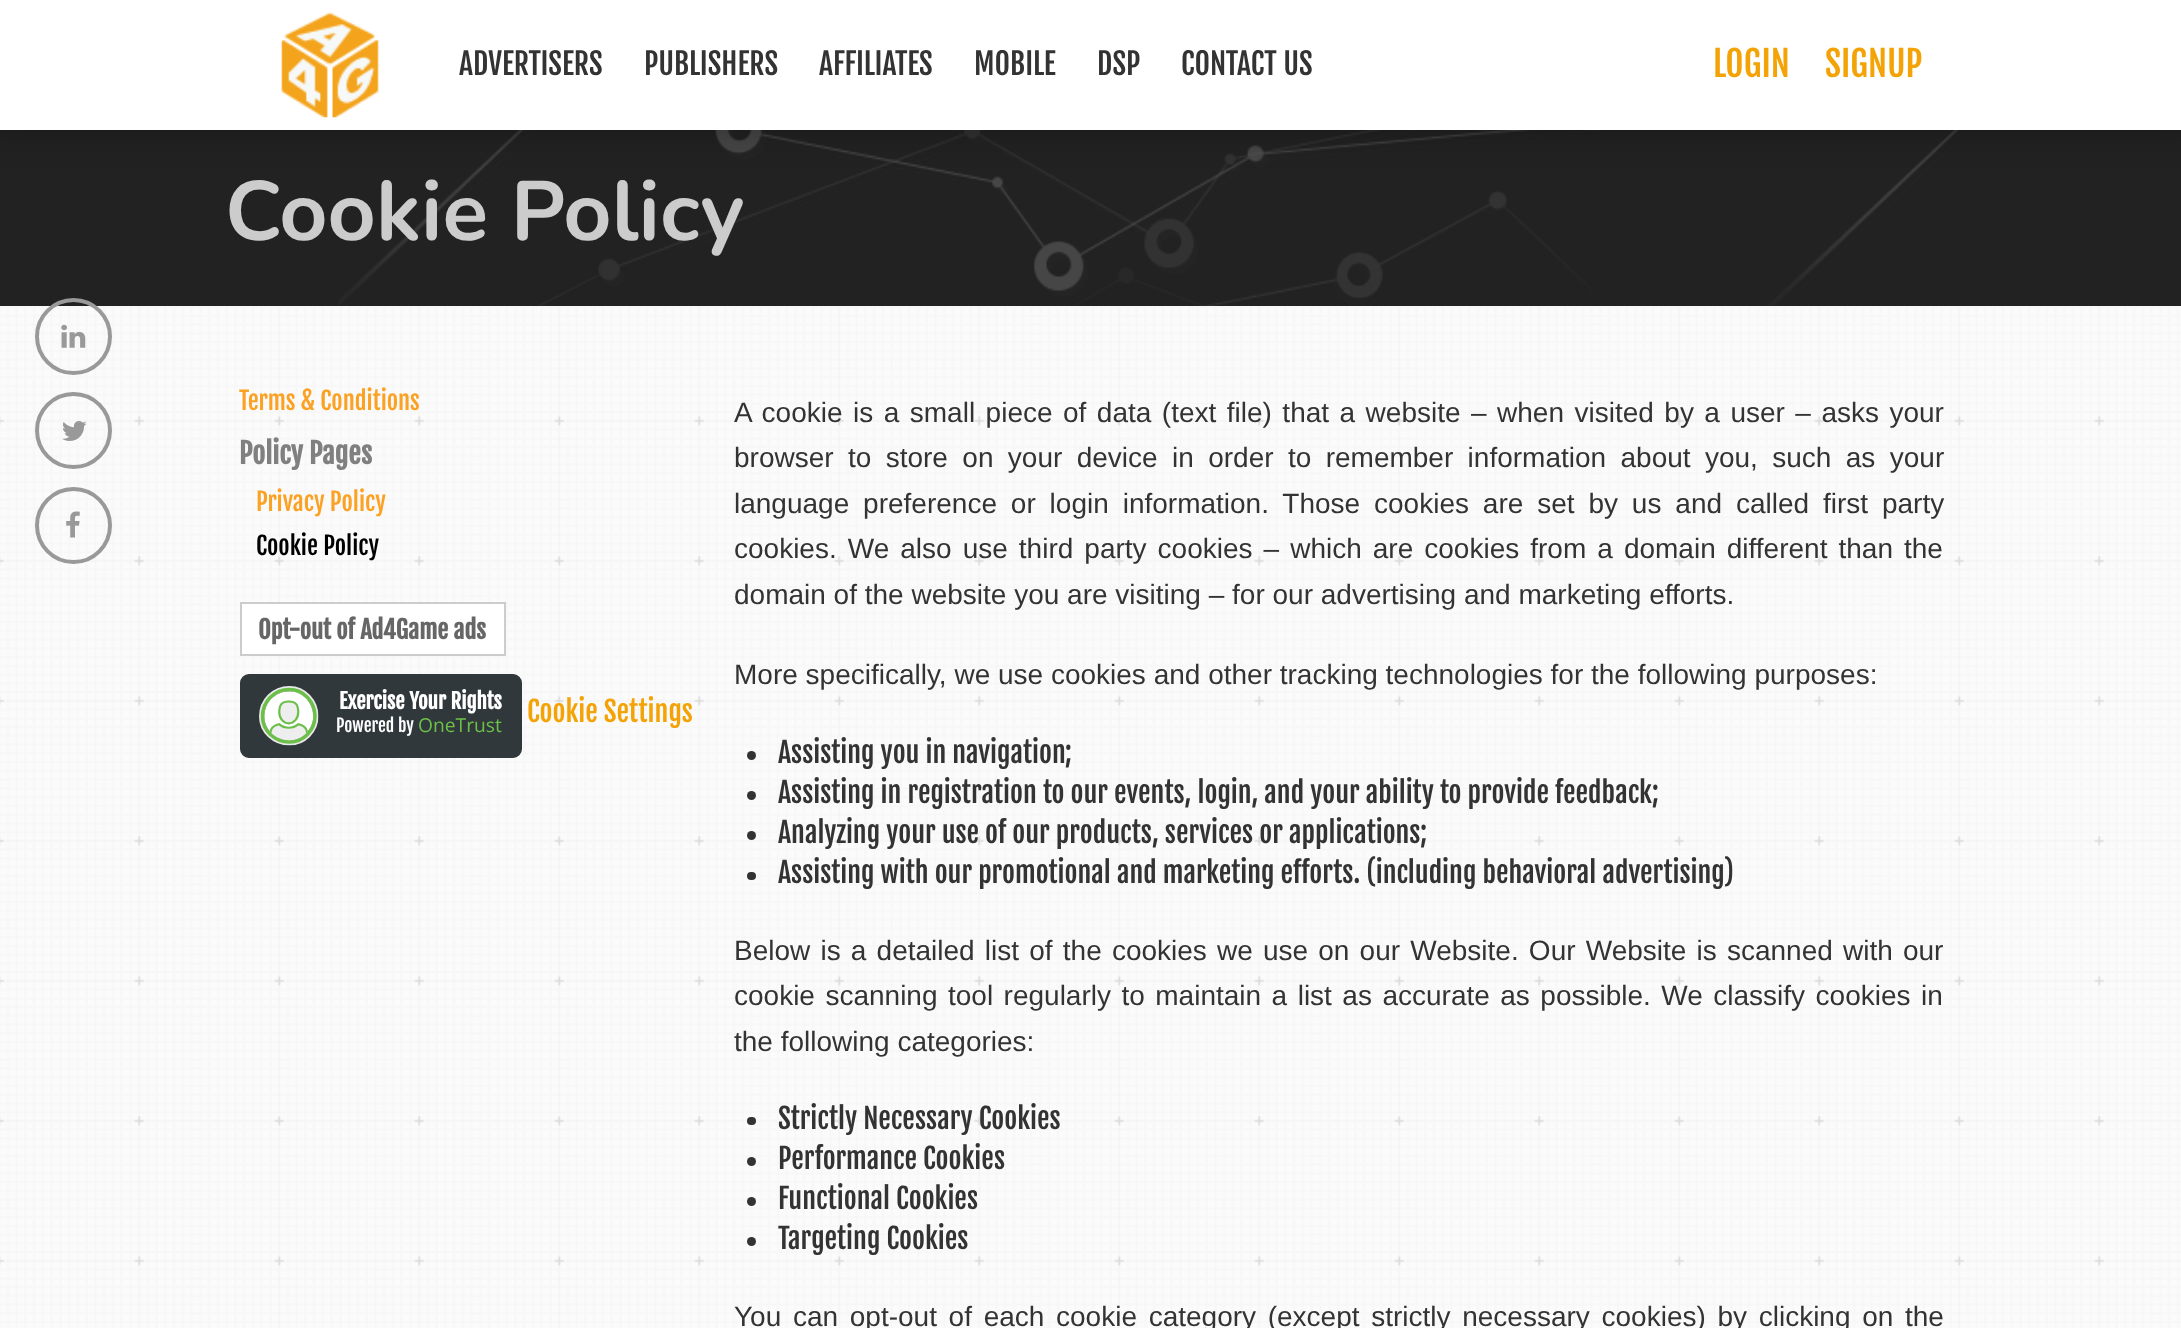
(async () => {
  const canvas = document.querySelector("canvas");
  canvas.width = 2181;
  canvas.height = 1328;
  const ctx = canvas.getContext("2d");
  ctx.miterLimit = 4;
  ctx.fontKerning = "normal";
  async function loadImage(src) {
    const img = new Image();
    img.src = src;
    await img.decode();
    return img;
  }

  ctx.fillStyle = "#ffffff";
  ctx.fillRect(0, 0, 2181, 1328);
  ctx.drawImage(await loadImage("img/1.png"), 0, 306, 2181, 1022);
  ctx.fillStyle = "#222222";
  ctx.fillRect(0, 130, 2181, 176);
  ctx.drawImage(await loadImage("img/6.png"), 338, 130, 1620, 176);
  ctx.fillStyle = "rgba(0, 0, 0, 0.3)";
  ctx.filter = "blur(17.5px)";
  ctx.beginPath();
  ctx.rect(-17, -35, 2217, 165);
  ctx.fill();
  ctx.filter = "none";
  ctx.fillStyle = "#ffffff";
  ctx.fillRect(0, 0, 2181, 130);
  ctx.drawImage(await loadImage("img/2.png"), 281, 12, 98, 106);
  ctx.beginPath();
  ctx.arc(73.5, 336.5, 36.5, 0, Math.PI * 2);
  ctx.strokeStyle = "#999999";
  ctx.lineWidth = 4;
  ctx.stroke();
  ctx.drawImage(await loadImage("img/3.png"), 61, 324, 25, 24);
  ctx.beginPath();
  ctx.arc(73.5, 430.5, 36.5, 0, Math.PI * 2);
  ctx.stroke();
  ctx.drawImage(await loadImage("img/4.png"), 62, 421, 25, 20);
  ctx.beginPath();
  ctx.arc(73.5, 525.5, 36.5, 0, Math.PI * 2);
  ctx.stroke();
  ctx.drawImage(await loadImage("img/5.png"), 66, 511, 14, 27);
  ctx.beginPath();
  ctx.rect(241, 603, 264, 52);
  ctx.fill();
  ctx.strokeStyle = "#cccccc";
  ctx.lineWidth = 2;
  ctx.stroke();
  ctx.fillStyle = "#30383b";
  ctx.beginPath();
  ctx.roundRect(241, 675, 280, 82, 8);
  ctx.fill();
  ctx.strokeStyle = "#30383b";
  ctx.stroke();
  ctx.drawImage(await loadImage("img/7.png"), 259, 686, 60, 60);
  ctx.fillStyle = "#333333";
  ctx.beginPath();
  ctx.arc(751.5, 755.5, 4.5, 0, Math.PI * 2);
  ctx.fill();
  ctx.beginPath();
  ctx.arc(751.5, 795.5, 4.5, 0, Math.PI * 2);
  ctx.fill();
  ctx.beginPath();
  ctx.arc(751.5, 835.5, 4.5, 0, Math.PI * 2);
  ctx.fill();
  ctx.beginPath();
  ctx.roundRect(747, 872, 9, 8, 4);
  ctx.fill();
  ctx.beginPath();
  ctx.roundRect(747, 1117, 9, 8, 4);
  ctx.fill();
  ctx.beginPath();
  ctx.arc(751.5, 1161.5, 4.5, 0, Math.PI * 2);
  ctx.fill();
  ctx.beginPath();
  ctx.arc(751.5, 1201.5, 4.5, 0, Math.PI * 2);
  ctx.fill();
  ctx.beginPath();
  ctx.arc(751.5, 1241.5, 4.5, 0, Math.PI * 2);
  ctx.fill();
  ctx.font = "29.75px Fjalla One";
  for (const [text, x, y] of [
    ["ADVERTISERS", 459, 75],
    ["PUBLISHERS", 644, 75],
    ["AFFILIATES", 819, 75],
    ["MOBILE", 974, 75],
    ["DSP", 1097, 75],
    ["CONTACT US", 1181, 75],
  ]) {
    ctx.fillText(text, x, y);
  }
  ctx.font = "35px Fjalla One";
  ctx.fillStyle = "#f4a307";
  ctx.fillText("LOGIN", 1713, 77);
  ctx.fillText("SIGNUP", 1825, 77);
  ctx.font = "bold 84px Nunito";
  ctx.fillStyle = "#cccccc";
  ctx.fillText("Cookie Policy", 225, 240);
  ctx.font = "24.5px Fjalla One";
  ctx.fillStyle = "#fba225";
  ctx.fillText("Terms & Conditions", 239, 410);
  ctx.font = "bold 28px Fjalla One";
  ctx.fillStyle = "#808080";
  ctx.fillText("Policy Pages", 239, 464);
  ctx.font = "24.5px Fjalla One";
  ctx.fillStyle = "#fba225";
  ctx.fillText("Privacy Policy", 256, 511);
  ctx.fillStyle = "#000000";
  ctx.fillText("Cookie Policy", 256, 555);
  ctx.font = "bold 24.5px Fjalla One";
  ctx.fillStyle = "#666666";
  ctx.fillText("Opt-out of Ad4Game ads", 258, 639);
  ctx.font = "bold 21px Fjalla One";
  ctx.fillStyle = "#ffffff";
  ctx.fillText("Exercise Your Rights", 339, 709);
  ctx.font = "17.5px Fjalla One";
  ctx.fillText("Powered by", 336, 732);
  ctx.font = "19.25px Open Sans";
  ctx.fillStyle = "#6cc04a";
  ctx.fillText("OneTrust", 418, 732);
  ctx.font = "28px Fjalla One";
  ctx.fillStyle = "#f4a307";
  ctx.fillText("Cookie Settings", 527, 722);
  ctx.wordSpacing = "2.7px";
  ctx.font = "28px Liberation Sans";
  ctx.fillStyle = "#333333";
  ctx.fillText("A cookie is a small piece of data (text file) that a website – when visited by a user – asks your", 734, 422);
  ctx.wordSpacing = "6.6px";
  ctx.fillText("browser to store on your device in order to remember information about you, such as your", 734, 467);
  ctx.wordSpacing = "6.1px";
  ctx.fillText("language preference or login information. Those cookies are set by us and called first party", 734, 513);
  ctx.wordSpacing = "3.25px";
  ctx.fillText("cookies. We also use third party cookies – which are cookies from a domain different than the", 734, 558);
  ctx.wordSpacing = "0px";
  ctx.fillText("domain of the website you are visiting – for our advertising and marketing efforts.", 734, 604);
  ctx.fillText("More specifically, we use cookies and other tracking technologies for the following purposes:", 734, 684);
  ctx.font = "28px Fjalla One";
  for (const [text, x, y] of [
    ["Assisting you in navigation;", 778, 763],
    ["Assisting in registration to our events, login, and your ability to provide feedback;", 778, 803],
    ["Analyzing your use of our products, services or applications;", 778, 843],
    ["Assisting with our promotional and marketing efforts. (including behavioral advertising)", 778, 883],
  ]) {
    ctx.fillText(text, x, y);
  }
  ctx.wordSpacing = "2.4px";
  ctx.font = "28px Liberation Sans";
  ctx.fillText("Below is a detailed list of the cookies we use on our Website. Our Website is scanned with our", 734, 960);
  ctx.wordSpacing = "2.7px";
  ctx.fillText("cookie scanning tool regularly to maintain a list as accurate as possible. We classify cookies in", 734, 1005);
  ctx.wordSpacing = "0px";
  ctx.fillText("the following categories:", 734, 1051);
  ctx.font = "28px Fjalla One";
  for (const [text, x, y] of [
    ["Strictly Necessary Cookies", 778, 1129],
    ["Performance Cookies", 778, 1169],
    ["Functional Cookies", 778, 1209],
    ["Targeting Cookies", 778, 1249],
  ]) {
    ctx.fillText(text, x, y);
  }
  ctx.wordSpacing = "3.9px";
  ctx.font = "28px Liberation Sans";
  ctx.fillText("You can opt-out of each cookie category (except strictly necessary cookies) by clicking on the", 734, 1326);
})();
